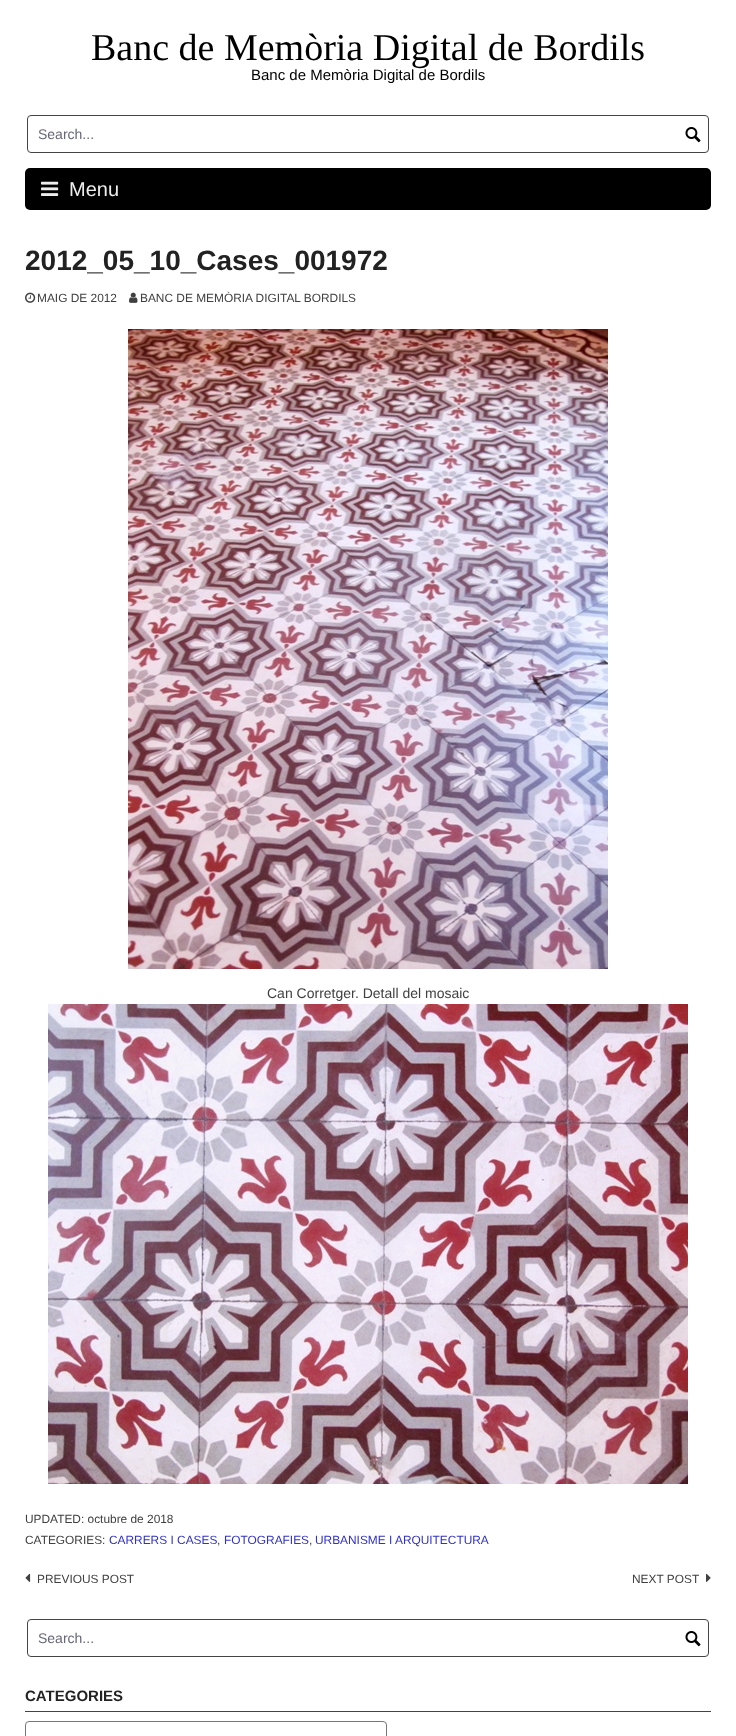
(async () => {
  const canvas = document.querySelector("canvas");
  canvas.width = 736;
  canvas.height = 1736;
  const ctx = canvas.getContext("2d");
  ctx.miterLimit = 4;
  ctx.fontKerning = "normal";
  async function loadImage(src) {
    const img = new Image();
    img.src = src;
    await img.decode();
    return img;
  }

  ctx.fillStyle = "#ffffff";
  ctx.fillRect(0, 0, 736, 1736);
  ctx.beginPath();
  ctx.roundRect(27.5, 115.5, 681, 37, 3.5);
  ctx.strokeStyle = "#444444";
  ctx.stroke();
  ctx.drawImage(await loadImage("img/1.png"), 685, 127, 16, 16);
  ctx.fillStyle = "#000000";
  ctx.beginPath();
  ctx.roundRect(25, 168, 686, 42, 5);
  ctx.fill();
  ctx.drawImage(await loadImage("img/2.png"), 41, 181, 18, 15);
  ctx.drawImage(await loadImage("img/3.png"), 25, 292, 11, 11);
  ctx.drawImage(await loadImage("img/4.png"), 129, 292, 9, 11);
  ctx.drawImage(await loadImage("img/5.png"), 128, 329, 480, 640);
  ctx.drawImage(await loadImage("img/6.png"), 48, 1004, 640, 480);
  ctx.drawImage(await loadImage("img/7.png"), 25, 1573, 6, 9);
  ctx.drawImage(await loadImage("img/8.png"), 706, 1573, 5, 9);
  ctx.beginPath();
  ctx.roundRect(27.5, 1619.5, 681, 37, 3.5);
  ctx.stroke();
  ctx.drawImage(await loadImage("img/1.png"), 685, 1631, 16, 16);
  ctx.fillStyle = "#444444";
  ctx.fillRect(25, 1711, 686, 1);
  ctx.beginPath();
  ctx.roundRect(25.5, 1721.5, 361, 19, 3.5);
  ctx.strokeStyle = "#777777";
  ctx.stroke();
  ctx.font = "38px Liberation Serif";
  ctx.fillStyle = "#000000";
  ctx.fillText("Banc de Memòria Digital de Bordils", 91, 60);
  ctx.font = "15px Liberation Sans";
  ctx.fillText("Banc de Memòria Digital de Bordils", 251, 80);
  ctx.font = "14px Liberation Sans";
  ctx.fillStyle = "#666677";
  ctx.fillText("Search...", 38, 139);
  ctx.font = "20px Liberation Sans";
  ctx.fillStyle = "#eeeeee";
  ctx.fillText("Menu", 69, 196);
  ctx.font = "bold 28px Liberation Sans";
  ctx.fillStyle = "#222222";
  ctx.fillText("2012_05_10_Cases_001972", 25, 270);
  ctx.font = "11.9px Liberation Sans";
  ctx.fillStyle = "#404040";
  ctx.fillText("MAIG DE 2012", 37, 302);
  ctx.fillText("BANC DE MEMÒRIA DIGITAL BORDILS", 140, 302);
  ctx.font = "14px Liberation Sans";
  ctx.fillText("Can Corretger. Detall del mosaic", 267, 998);
  ctx.font = "11.9px Liberation Sans";
  ctx.fillText("UPDATED: octubre de 2018", 25, 1523);
  ctx.fillText("CATEGORIES:", 25, 1544);
  ctx.fillStyle = "#3030cc";
  ctx.fillText("CARRERS I CASES", 109, 1544);
  ctx.fillStyle = "#404040";
  ctx.fillText(",", 217, 1544);
  ctx.fillStyle = "#3030cc";
  ctx.fillText("FOTOGRAFIES", 224, 1544);
  ctx.fillStyle = "#404040";
  ctx.fillText(",", 309, 1544);
  ctx.fillStyle = "#3030cc";
  ctx.fillText("URBANISME I ARQUITECTURA", 315, 1544);
  ctx.fillStyle = "#404040";
  ctx.fillText("PREVIOUS POST", 37, 1583);
  ctx.fillText("NEXT POST", 632, 1583);
  ctx.font = "14px Liberation Sans";
  ctx.fillStyle = "#666677";
  ctx.fillText("Search...", 38, 1643);
  ctx.font = "bold 15px Liberation Sans";
  ctx.fillStyle = "#222222";
  ctx.fillText("CATEGORIES", 25, 1701);
})();
